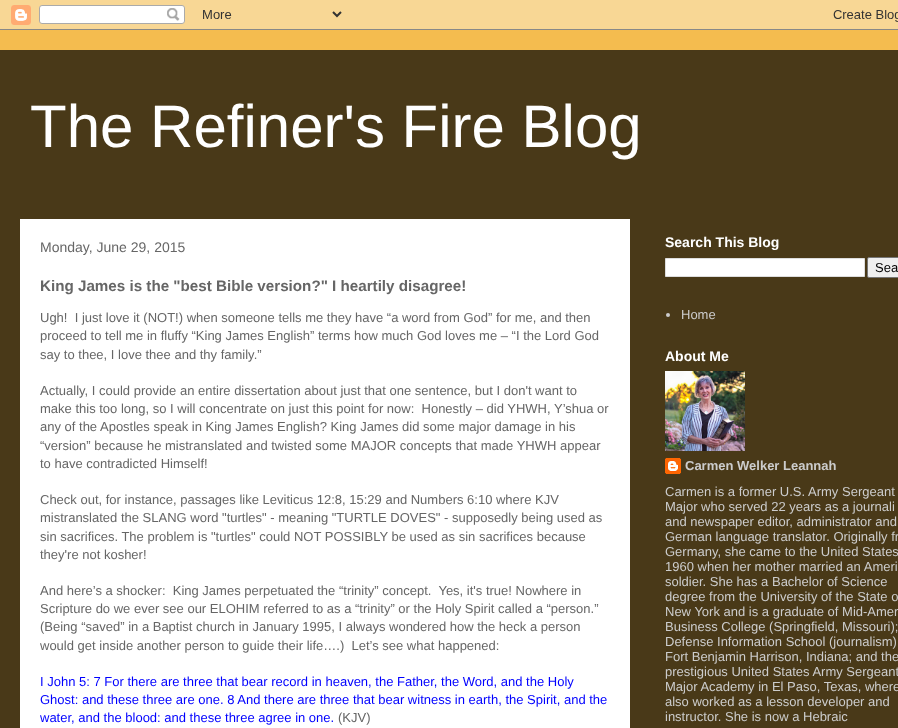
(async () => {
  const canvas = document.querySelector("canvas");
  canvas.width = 898;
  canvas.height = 728;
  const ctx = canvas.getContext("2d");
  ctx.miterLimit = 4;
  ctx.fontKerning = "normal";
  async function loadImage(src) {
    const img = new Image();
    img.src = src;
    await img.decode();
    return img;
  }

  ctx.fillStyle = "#f4bc4f";
  ctx.fillRect(0, 0, 898, 728);
  ctx.drawImage(await loadImage("img/1.png"), 0, 0, 898, 30);
  ctx.fillStyle = "#493918";
  ctx.fillRect(0, 50, 898, 678);
  ctx.fillStyle = "#ffffff";
  ctx.fillRect(20, 219, 610, 509);
  ctx.beginPath();
  ctx.rect(665.5, 258.5, 199, 18);
  ctx.fill();
  ctx.strokeStyle = "#dddddd";
  ctx.stroke();
  ctx.fillStyle = "#efefef";
  ctx.beginPath();
  ctx.roundRect(867.5, 257.5, 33, 20, 1.5);
  ctx.fill();
  ctx.strokeStyle = "#767676";
  ctx.stroke();
  ctx.fillStyle = "#cccccc";
  ctx.beginPath();
  ctx.arc(668, 315, 2, 0, Math.PI * 2);
  ctx.fill();
  ctx.drawImage(await loadImage("img/2.png"), 665, 371, 80, 80);
  ctx.drawImage(await loadImage("img/3.png"), 665, 458, 16, 16);
  ctx.font = "60px Liberation Sans";
  ctx.fillStyle = "#ffffff";
  ctx.fillText("The Refiner's Fire Blog", 30, 147);
  ctx.font = "14px Liberation Sans";
  ctx.fillStyle = "#666666";
  ctx.fillText("Monday, June 29, 2015", 40, 252);
  ctx.font = "bold 15.2px Liberation Sans";
  ctx.fillText("King James is the \"best Bible version?\" I heartily disagree!", 40, 291);
  ctx.font = "13px Liberation Sans";
  for (const [text, x, y] of [
    ["Ugh!  I just love it (NOT!) when someone tells me they have “a word from God” for me, and then", 40, 322],
    ["proceed to tell me in fluffy “King James English” terms how much God loves me – “I the Lord God", 40, 340],
    ["say to thee, I love thee and thy family.”", 40, 359],
    ["Actually, I could provide an entire dissertation about just that one sentence, but I don't want to", 40, 395],
    ["make this too long, so I will concentrate on just this point for now:  Honestly – did YHWH, Y’shua or", 40, 413],
    ["any of the Apostles speak in King James English? King James did some major damage in his", 40, 431],
    ["“version” because he mistranslated and twisted some MAJOR concepts that made YHWH appear", 40, 450],
    ["to have contradicted Himself!", 40, 468],
    ["Check out, for instance, passages like Leviticus 12:8, 15:29 and Numbers 6:10 where KJV", 40, 504],
    ["mistranslated the SLANG word \"turtles\" - meaning \"TURTLE DOVES\" - supposedly being used as", 40, 522],
    ["sin sacrifices. The problem is \"turtles\" could NOT POSSIBLY be used as sin sacrifices because", 40, 541],
    ["they're not kosher!", 40, 559],
    ["And here’s a shocker:  King James perpetuated the “trinity” concept.  Yes, it's true! Nowhere in", 40, 595],
    ["Scripture do we ever see our ELOHIM referred to as a “trinity” or the Holy Spirit called a “person.”", 40, 613],
    ["(Being “saved” in a Baptist church in January 1995, I always wondered how the heck a person", 40, 631],
    ["would get inside another person to guide their life….)  Let’s see what happened:", 40, 650],
  ]) {
    ctx.fillText(text, x, y);
  }
  ctx.fillStyle = "#0000ff";
  for (const [text, x, y] of [
    ["I John 5: 7 For there are three that bear record in heaven, the Father, the Word, and the Holy", 40, 686],
    ["Ghost: and these three are one. 8 And there are three that bear witness in earth, the Spirit, and the", 40, 704],
    ["water, and the blood: and these three agree in one.", 40, 722],
  ]) {
    ctx.fillText(text, x, y);
  }
  ctx.fillStyle = "#666666";
  ctx.fillText("(KJV)", 338, 722);
  ctx.font = "bold 14px Liberation Sans";
  ctx.fillStyle = "#ffffff";
  ctx.fillText("Search This Blog", 665, 247);
  ctx.font = "13px Liberation Sans";
  ctx.fillStyle = "#000000";
  ctx.fillText("Sea", 875, 272);
  ctx.fillStyle = "#cccccc";
  ctx.fillText("Home", 681, 319);
  ctx.font = "bold 14px Liberation Sans";
  ctx.fillStyle = "#ffffff";
  ctx.fillText("About Me", 665, 361);
  ctx.font = "bold 13px Liberation Sans";
  ctx.fillStyle = "#cccccc";
  ctx.fillText("Carmen Welker Leannah", 685, 470);
  ctx.font = "13px Liberation Sans";
  for (const [text, x, y] of [
    ["Carmen is a former U.S. Army Sergeant", 665, 496],
    ["Major who served 22 years as a journali", 665, 511],
    ["and newspaper editor, administrator and", 665, 526],
    ["German language translator. Originally fr", 665, 541],
    ["Germany, she came to the United States", 665, 556],
    ["1960 when her mother married an Ameri", 665, 571],
    ["soldier. She has a Bachelor of Science", 665, 586],
    ["degree from the University of the State o", 665, 601],
    ["New York and is a graduate of Mid-Amer", 665, 616],
    ["Business College (Springfield, Missouri);", 665, 631],
    ["Defense Information School (journalism)", 665, 646],
    ["Fort Benjamin Harrison, Indiana; and the", 665, 661],
    ["prestigious United States Army Sergeant", 665, 676],
    ["Major Academy in El Paso, Texas, where", 665, 691],
    ["also worked as a lesson developer and", 665, 706],
    ["instructor. She is now a Hebraic", 665, 721],
  ]) {
    ctx.fillText(text, x, y);
  }
})();
